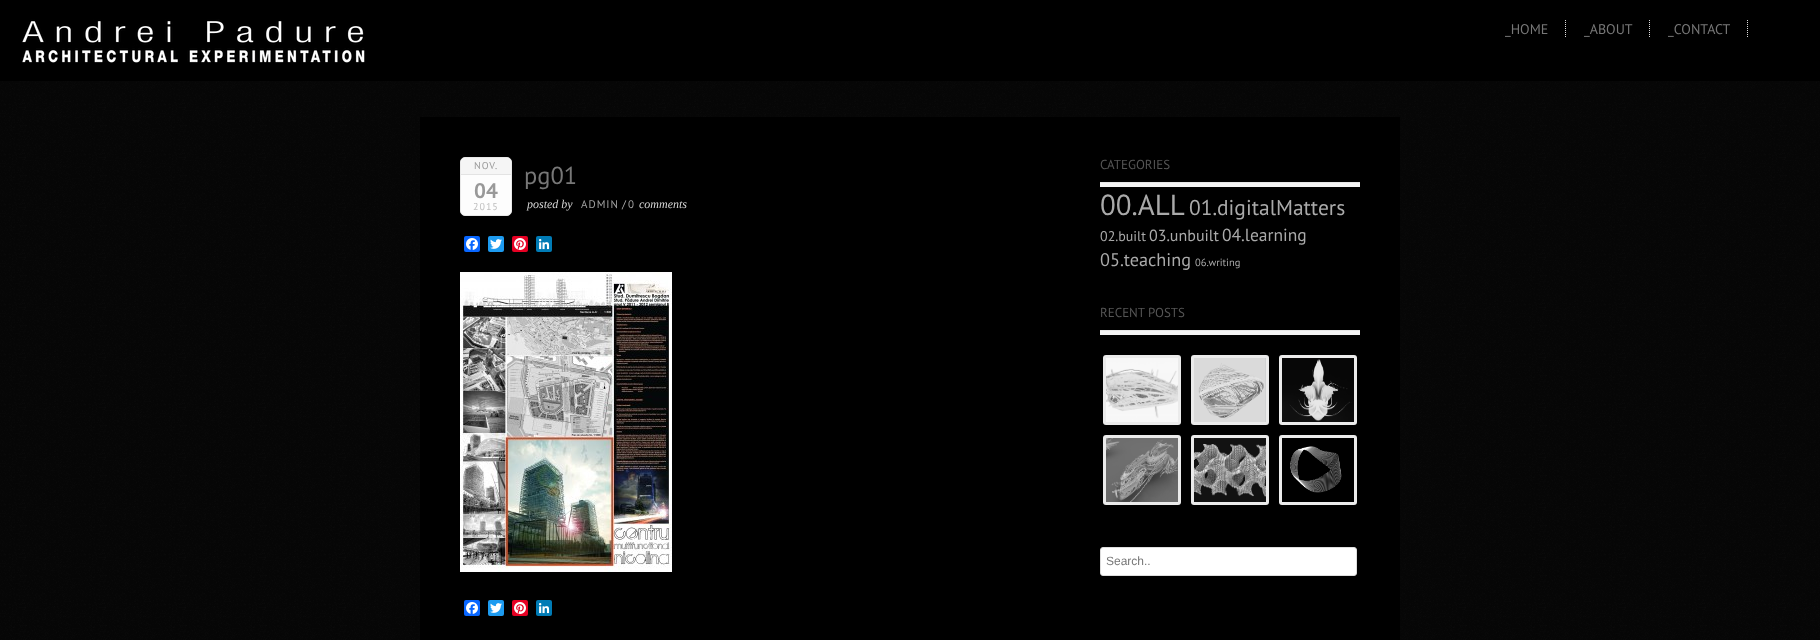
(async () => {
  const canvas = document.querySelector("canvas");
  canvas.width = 1820;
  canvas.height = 640;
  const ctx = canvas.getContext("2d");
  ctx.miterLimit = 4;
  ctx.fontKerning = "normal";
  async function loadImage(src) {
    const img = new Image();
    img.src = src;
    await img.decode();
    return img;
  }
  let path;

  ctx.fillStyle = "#000000";
  ctx.fillRect(0, 0, 1820, 640);
  ctx.drawImage(await loadImage("img/1.png"), 0, 81, 1820, 559);
  ctx.drawImage(await loadImage("img/2.png"), 21, 19, 344, 44);
  path = new Path2D("M1565.5 20V38");
  ctx.strokeStyle = "#dddddd";
  ctx.setLineDash([1, 1]);
  ctx.stroke(path);
  path = new Path2D("M1649.5 20V38");
  ctx.stroke(path);
  path = new Path2D("M1747.5 20V38");
  ctx.stroke(path);
  ctx.fillRect(420, 117, 980, 523);
  ctx.fillStyle = "#fdfdfd";
  ctx.beginPath();
  ctx.roundRect(460.5, 157.5, 51, 58, 4.5);
  ctx.fill();
  ctx.strokeStyle = "#e8e8e8";
  ctx.setLineDash([]);
  ctx.stroke();
  ctx.fillStyle = "#f5f5f5";
  ctx.beginPath();
  ctx.roundRect(461, 158, 50, 17, [5, 5, 0, 0]);
  ctx.fill();
  ctx.fillStyle = "#e3e3e3";
  ctx.fillRect(461, 174, 50, 1);
  ctx.fillStyle = "#0866ff";
  ctx.beginPath();
  ctx.roundRect(464, 236, 16, 16, 2);
  ctx.fill();
  ctx.drawImage(await loadImage("img/3.png"), 466, 238, 12, 12);
  ctx.fillStyle = "#1d9bf0";
  ctx.beginPath();
  ctx.roundRect(488, 236, 16, 16, 2);
  ctx.fill();
  ctx.drawImage(await loadImage("img/4.png"), 490, 239, 12, 10);
  ctx.fillStyle = "#e60023";
  ctx.beginPath();
  ctx.roundRect(512, 236, 16, 16, 2);
  ctx.fill();
  ctx.drawImage(await loadImage("img/5.png"), 514, 238, 12, 12);
  ctx.fillStyle = "#007bb5";
  ctx.beginPath();
  ctx.roundRect(536, 236, 16, 16, 2);
  ctx.fill();
  ctx.drawImage(await loadImage("img/6.png"), 539, 239, 11, 11);
  ctx.drawImage(await loadImage("img/7.png"), 460, 272, 212, 300);
  ctx.fillStyle = "#0866ff";
  ctx.beginPath();
  ctx.roundRect(464, 600, 16, 16, 2);
  ctx.fill();
  ctx.drawImage(await loadImage("img/3.png"), 466, 602, 12, 12);
  ctx.fillStyle = "#1d9bf0";
  ctx.beginPath();
  ctx.roundRect(488, 600, 16, 16, 2);
  ctx.fill();
  ctx.drawImage(await loadImage("img/4.png"), 490, 603, 12, 10);
  ctx.fillStyle = "#e60023";
  ctx.beginPath();
  ctx.roundRect(512, 600, 16, 16, 2);
  ctx.fill();
  ctx.drawImage(await loadImage("img/5.png"), 514, 602, 12, 12);
  ctx.fillStyle = "#007bb5";
  ctx.beginPath();
  ctx.roundRect(536, 600, 16, 16, 2);
  ctx.fill();
  ctx.drawImage(await loadImage("img/6.png"), 539, 603, 11, 11);
  for (const [x, y, w, h, color] of [
    [1100, 183, 260, 4, "#f4f4f4"],
    [1100, 182, 260, 1, "#e6e6e6"],
    [1100, 331, 260, 4, "#f4f4f4"],
    [1100, 330, 260, 1, "#e6e6e6"],
  ]) {
    ctx.fillStyle = color;
    ctx.fillRect(x, y, w, h);
  }
  ctx.fillStyle = "#ebebeb";
  ctx.beginPath();
  ctx.roundRect(1103, 355, 78, 70, 3);
  ctx.fill();
  ctx.drawImage(await loadImage("img/8.png"), 1106, 358, 72, 64);
  ctx.beginPath();
  ctx.roundRect(1191, 355, 78, 70, 3);
  ctx.fill();
  ctx.drawImage(await loadImage("img/9.png"), 1194, 358, 72, 64);
  ctx.beginPath();
  ctx.roundRect(1279, 355, 78, 70, 3);
  ctx.fill();
  ctx.drawImage(await loadImage("img/10.png"), 1282, 358, 72, 64);
  ctx.beginPath();
  ctx.roundRect(1103, 435, 78, 70, 3);
  ctx.fill();
  ctx.drawImage(await loadImage("img/11.png"), 1106, 438, 72, 64);
  ctx.beginPath();
  ctx.roundRect(1191, 435, 78, 70, 3);
  ctx.fill();
  ctx.drawImage(await loadImage("img/12.png"), 1194, 438, 72, 64);
  ctx.beginPath();
  ctx.roundRect(1279, 435, 78, 70, 3);
  ctx.fill();
  ctx.drawImage(await loadImage("img/13.png"), 1282, 438, 72, 64);
  ctx.fillStyle = "#ffffff";
  ctx.beginPath();
  ctx.roundRect(1100.5, 547.5, 256, 28, 2.5);
  ctx.fill();
  ctx.strokeStyle = "#dddddd";
  ctx.stroke();
  ctx.font = "14px PT Sans";
  ctx.fillStyle = "#777777";
  for (const [text, x, y] of [
    ["_HOME", 1505, 34],
    ["_ABOUT", 1584, 34],
    ["_CONTACT", 1668, 34],
  ]) {
    ctx.fillText(text, x, y);
  }
  ctx.letterSpacing = "1px";
  ctx.font = "10px PT Sans";
  ctx.fillStyle = "#999999";
  ctx.fillText("NOV.", 474, 169);
  ctx.letterSpacing = "0px";
  ctx.font = "bold 21px PT Sans";
  ctx.fillText("04", 474, 198);
  ctx.letterSpacing = "1px";
  ctx.font = "10px PT Sans";
  ctx.fillStyle = "#bebebe";
  ctx.fillText("2015", 473, 210);
  ctx.letterSpacing = "0px";
  ctx.font = "24.5px PT Sans";
  ctx.fillStyle = "#777777";
  ctx.fillText("pg01", 524, 184);
  ctx.font = "italic 12px Liberation Serif";
  ctx.fillStyle = "#d5d5d5";
  ctx.fillText("posted by", 527, 208);
  ctx.letterSpacing = "1px";
  ctx.font = "11px PT Sans";
  ctx.fillStyle = "#a3a3a3";
  ctx.fillText("ADMIN", 581, 208);
  ctx.letterSpacing = "0px";
  ctx.fillStyle = "#b5b5b5";
  ctx.fillText("/", 622, 208);
  ctx.letterSpacing = "1px";
  ctx.fillStyle = "#a3a3a3";
  ctx.fillText("0", 628, 208);
  ctx.letterSpacing = "0px";
  ctx.font = "italic 12px Liberation Serif";
  ctx.fillStyle = "#d5d5d5";
  ctx.fillText("comments", 639, 208);
  ctx.font = "13px PT Sans";
  ctx.fillStyle = "#555555";
  ctx.fillText("CATEGORIES", 1100, 169);
  ctx.font = "29px PT Sans";
  ctx.fillStyle = "#aaaaaa";
  ctx.fillText("00.ALL", 1100, 215);
  ctx.font = "21.5px PT Sans";
  ctx.fillText("01.digitalMatters", 1189, 215);
  ctx.font = "14px PT Sans";
  ctx.fillText("02.built", 1100, 241);
  ctx.font = "16px PT Sans";
  ctx.fillText("03.unbuilt", 1149, 241);
  ctx.font = "17.5px PT Sans";
  ctx.fillText("04.learning", 1222, 241);
  ctx.font = "18.25px PT Sans";
  ctx.fillText("05.teaching", 1100, 266);
  ctx.font = "10.5px PT Sans";
  ctx.fillText("06.writing", 1195, 266);
  ctx.font = "13px PT Sans";
  ctx.fillStyle = "#555555";
  ctx.fillText("RECENT POSTS", 1100, 317);
  ctx.font = "12px Liberation Sans";
  ctx.fillStyle = "#777777";
  ctx.fillText("Search..", 1106, 565);
})();
